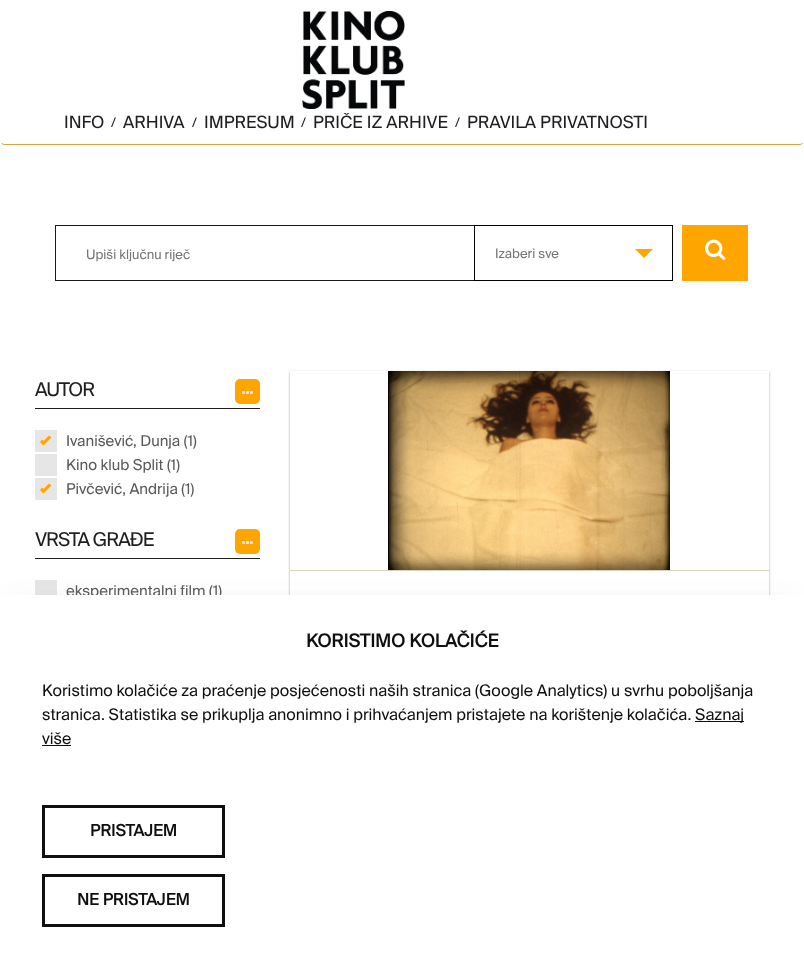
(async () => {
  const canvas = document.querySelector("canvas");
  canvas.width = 804;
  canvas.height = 959;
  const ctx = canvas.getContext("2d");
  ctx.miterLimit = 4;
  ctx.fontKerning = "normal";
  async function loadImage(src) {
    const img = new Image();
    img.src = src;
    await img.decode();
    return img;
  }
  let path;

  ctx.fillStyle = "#ffffff";
  ctx.fillRect(0, 0, 804, 959);
  path = new Path2D("M802.5 143.5L800 144.5H4L1.5 143.5");
  ctx.strokeStyle = "#d2aa41";
  ctx.stroke(path);
  ctx.drawImage(await loadImage("img/1.png"), 302, 11, 103, 98);
  ctx.strokeStyle = "#1a1a18";
  ctx.strokeRect(55.5, 225.5, 419, 55);
  ctx.strokeStyle = "#000000";
  ctx.strokeRect(474.5, 225.5, 198, 55);
  ctx.fillStyle = "#ffa500";
  path = new Path2D("M635 249H653L644 258Z");
  ctx.fill(path);
  ctx.fillRect(682, 225, 66, 56);
  ctx.drawImage(await loadImage("img/2.png"), 705, 239, 21, 22);
  ctx.fillStyle = "#1f1f1f";
  ctx.fillRect(35, 408, 225, 1);
  ctx.fillStyle = "#ffa500";
  ctx.beginPath();
  ctx.roundRect(235, 379, 25, 25, 5);
  ctx.fill();
  ctx.drawImage(await loadImage("img/3.png"), 242, 391, 11, 3);
  ctx.fillStyle = "#e6e6e6";
  ctx.fillRect(35, 430, 22, 22);
  ctx.fillStyle = "#ffa500";
  path = new Path2D("M49 435.5L51.5 437.5L43.5 445.5L41.5 443Z");
  ctx.fill(path);
  path = new Path2D("M42 439.5L45.5 443L43.5 445.5L40 442Z");
  ctx.fill(path);
  ctx.fillStyle = "#e6e6e6";
  ctx.fillRect(35, 454, 22, 22);
  ctx.fillRect(35, 478, 22, 22);
  ctx.fillStyle = "#ffa500";
  path = new Path2D("M49 483.5L51.5 485.5L43.5 493.5L41.5 491Z");
  ctx.fill(path);
  path = new Path2D("M42 487.5L45.5 491L43.5 493.5L40 490Z");
  ctx.fill(path);
  ctx.fillStyle = "#1f1f1f";
  ctx.fillRect(35, 558, 225, 1);
  ctx.fillStyle = "#ffa500";
  ctx.beginPath();
  ctx.roundRect(235, 529, 25, 25, 5);
  ctx.fill();
  ctx.drawImage(await loadImage("img/3.png"), 242, 541, 11, 3);
  ctx.fillStyle = "#e6e6e6";
  ctx.fillRect(35, 580, 22, 15);
  ctx.save();
  path = new Path2D("M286 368H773V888H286ZM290 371H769V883H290Z");
  ctx.clip(path, "evenodd");
  ctx.fillStyle = "rgba(0, 0, 0, 0.24)";
  ctx.filter = "blur(1px)";
  ctx.beginPath();
  ctx.rect(290, 372, 479, 512);
  ctx.fill();
  ctx.filter = "none";
  ctx.restore();
  ctx.save();
  path = new Path2D("M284 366H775V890H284ZM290 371H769V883H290Z");
  ctx.clip(path, "evenodd");
  ctx.fillStyle = "rgba(0, 0, 0, 0.12)";
  ctx.filter = "blur(1.5px)";
  ctx.beginPath();
  ctx.rect(290, 372, 479, 512);
  ctx.fill();
  ctx.filter = "none";
  ctx.restore();
  ctx.fillStyle = "#d8d1bb";
  ctx.fillRect(290, 570, 479, 1);
  ctx.drawImage(await loadImage("img/4.png"), 388, 371, 282, 199);
  ctx.fillStyle = "rgba(54, 61, 77, 0.15)";
  ctx.filter = "blur(16px)";
  ctx.beginPath();
  ctx.rect(5, 611, 794, 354);
  ctx.fill();
  ctx.filter = "none";
  ctx.font = "17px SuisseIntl";
  ctx.fillStyle = "#1f1f1f";
  ctx.fillText("INFO", 64, 128);
  ctx.font = "13px SuisseIntl";
  ctx.fillText("/", 111, 127);
  ctx.font = "17px SuisseIntl";
  ctx.fillText("ARHIVA", 123, 128);
  ctx.font = "13px SuisseIntl";
  ctx.fillText("/", 192, 127);
  ctx.font = "17px SuisseIntl";
  ctx.fillText("IMPRESUM", 204, 128);
  ctx.font = "13px SuisseIntl";
  ctx.fillText("/", 301, 127);
  ctx.font = "17px SuisseIntl";
  ctx.fillText("PRIČE IZ ARHIVE", 313, 128);
  ctx.font = "13px SuisseIntl";
  ctx.fillText("/", 455, 127);
  ctx.font = "17px SuisseIntl";
  ctx.fillText("PRAVILA PRIVATNOSTI", 467, 128);
  ctx.font = "13px SuisseIntl";
  ctx.fillStyle = "#757575";
  ctx.fillText("Upiši ključnu riječ", 86, 259);
  ctx.fillText("Izaberi sve", 495, 258);
  ctx.letterSpacing = "-1px";
  ctx.font = "19px SuisseIntl";
  ctx.fillStyle = "#1f1f1f";
  ctx.fillText("AUTOR", 35, 396);
  ctx.letterSpacing = "0px";
  ctx.font = "15px SuisseIntl";
  ctx.fillStyle = "#5a5a5a";
  for (const [text, x, y] of [
    ["Ivanišević, Dunja (1)", 66, 446],
    ["Kino klub Split (1)", 66, 470],
    ["Pivčević, Andrija (1)", 66, 494],
  ]) {
    ctx.fillText(text, x, y);
  }
  ctx.letterSpacing = "-1px";
  ctx.font = "19px SuisseIntl";
  ctx.fillStyle = "#1f1f1f";
  ctx.fillText("VRSTA GRAĐE", 35, 546);
  ctx.letterSpacing = "0px";
  ctx.font = "15px SuisseIntl";
  ctx.fillStyle = "#5a5a5a";
  ctx.fillText("eksperimentalni film (1)", 66, 596);
  ctx.fillStyle = "#ffffff";
  ctx.fillRect(0, 595, 804, 364);
  ctx.font = "bold 18px SuisseIntl";
  ctx.fillStyle = "#0f0f0f";
  ctx.fillText("KORISTIMO KOLAČIĆE", 306, 647);
  ctx.font = "16px SuisseIntl";
  ctx.fillText("Koristimo kolačiće za praćenje posjećenosti naših stranica (Google Analytics) u svrhu poboljšanja", 42, 696);
  ctx.fillText("stranica. Statistika se prikuplja anonimno i prihvaćanjem pristajete na korištenje kolačića.", 42, 720);
  ctx.fillRect(695, 721, 49, 1);
  ctx.fillText("Saznaj", 695, 720);
  ctx.fillText("više", 42, 744);
  ctx.fillRect(42, 745, 29, 1);
  ctx.strokeStyle = "#0f0f0f";
  ctx.lineWidth = 3;
  ctx.strokeRect(43.5, 806.5, 180, 50);
  ctx.font = "bold 16px SuisseIntl";
  ctx.fillText("PRISTAJEM", 90, 836);
  ctx.strokeRect(43.5, 875.5, 180, 50);
  ctx.fillText("NE PRISTAJEM", 77, 905);
})();
